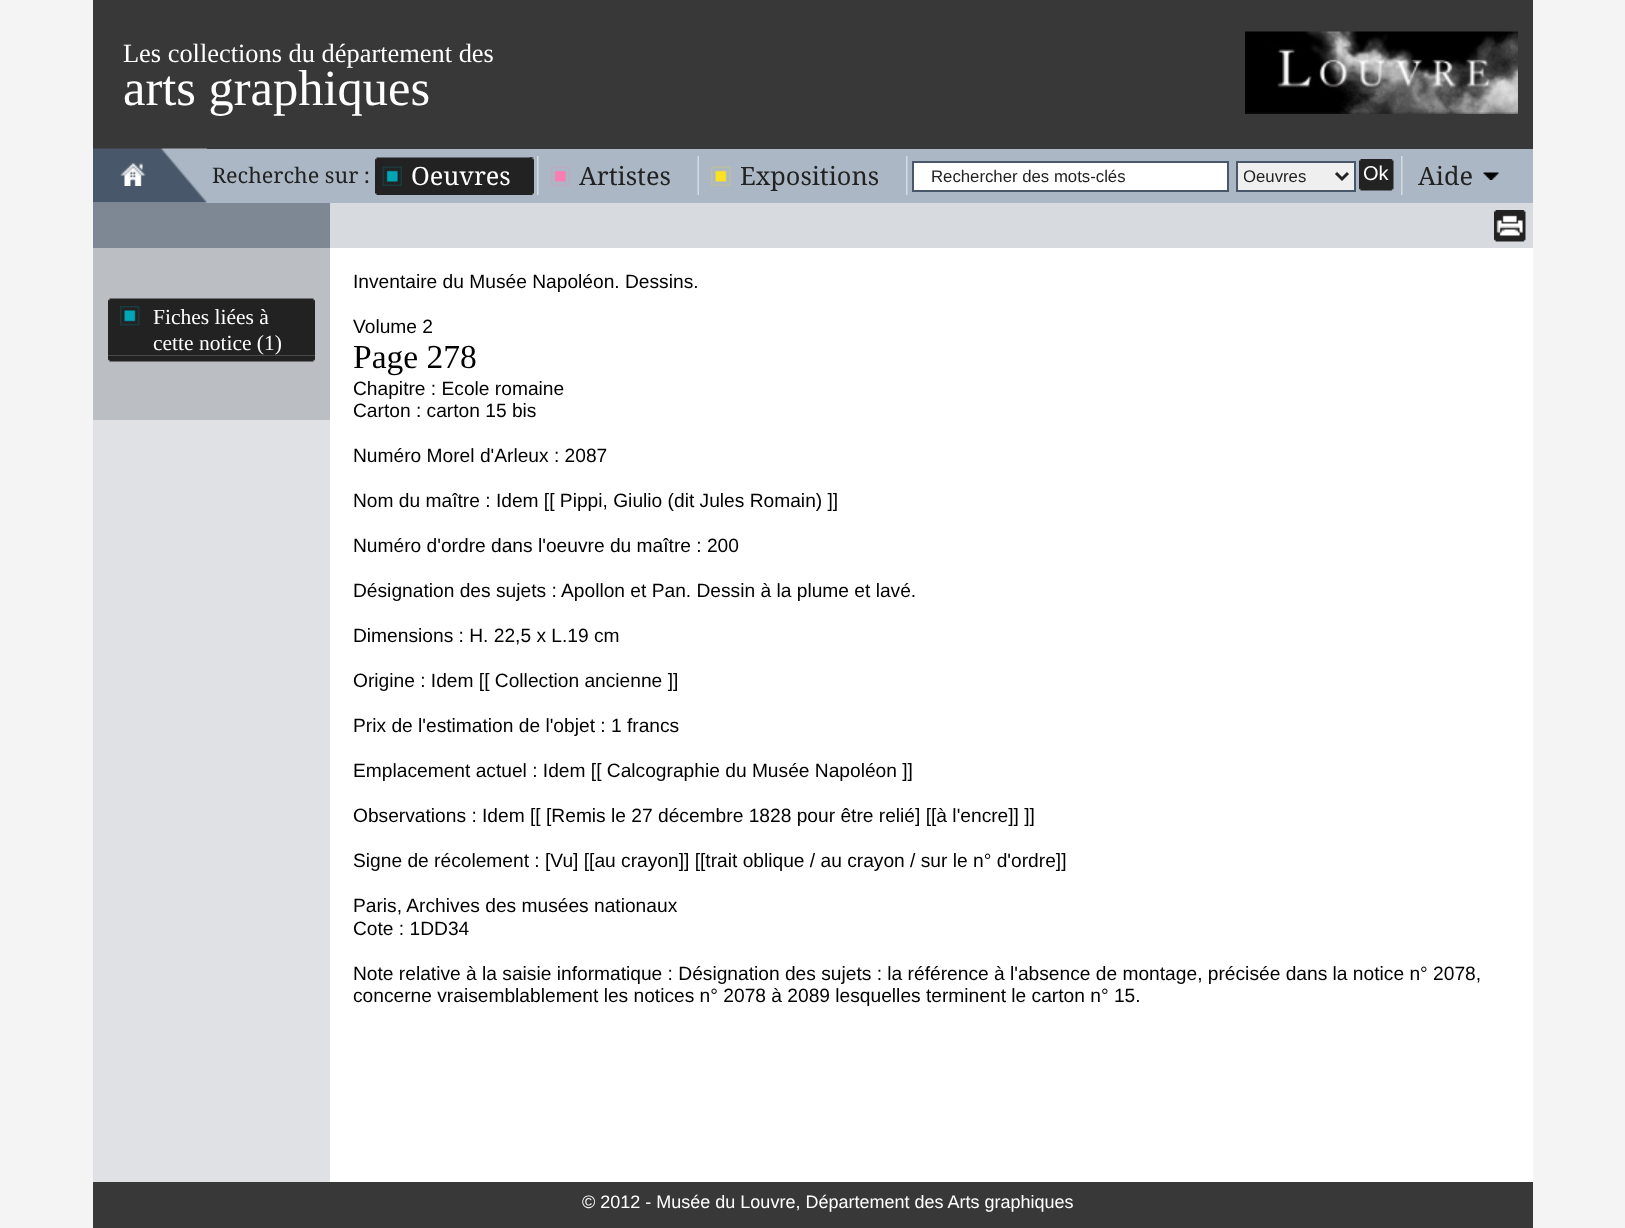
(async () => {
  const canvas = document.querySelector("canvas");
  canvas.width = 1625;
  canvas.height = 1228;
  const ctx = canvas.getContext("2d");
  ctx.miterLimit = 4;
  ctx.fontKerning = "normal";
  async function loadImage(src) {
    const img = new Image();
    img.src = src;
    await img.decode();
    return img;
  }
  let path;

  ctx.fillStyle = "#f4f4f4";
  ctx.fillRect(0, 0, 1625, 1228);
  ctx.fillStyle = "#ffffff";
  ctx.fillRect(330, 248, 1203, 934);
  ctx.fillStyle = "#383838";
  ctx.fillRect(93, 0, 1440, 149);
  ctx.drawImage(await loadImage("img/1.png"), 1245, 31, 273, 83);
  ctx.fillStyle = "#abb7c4";
  ctx.fillRect(93, 149, 1440, 54);
  ctx.drawImage(await loadImage("img/2.png"), 93, 148, 114, 55);
  ctx.drawImage(await loadImage("img/3.png"), 120, 163, 26, 23);
  ctx.drawImage(await loadImage("img/4.png"), 537, 156, 2, 39);
  ctx.drawImage(await loadImage("img/5.png"), 375, 157, 159, 38);
  ctx.drawImage(await loadImage("img/6.png"), 529, 157, 5, 38);
  ctx.drawImage(await loadImage("img/7.png"), 382, 166, 20, 20);
  ctx.drawImage(await loadImage("img/8.png"), 697, 156, 2, 39);
  ctx.drawImage(await loadImage("img/9.png"), 550, 166, 20, 20);
  ctx.drawImage(await loadImage("img/4.png"), 906, 156, 2, 39);
  ctx.drawImage(await loadImage("img/10.png"), 711, 166, 20, 20);
  ctx.fillStyle = "#ffffff";
  ctx.beginPath();
  ctx.rect(913, 162, 315, 29);
  ctx.fill();
  ctx.strokeStyle = "#485769";
  ctx.lineWidth = 2;
  ctx.stroke();
  ctx.fillStyle = "#efefef";
  ctx.beginPath();
  ctx.rect(1237, 162, 118, 29);
  ctx.fill();
  ctx.stroke();
  path = new Path2D("M1336 173L1342 179L1348 173");
  ctx.strokeStyle = "#222222";
  ctx.lineWidth = 3;
  ctx.stroke(path);
  ctx.drawImage(await loadImage("img/11.png"), 1359, 159, 30, 32);
  ctx.drawImage(await loadImage("img/12.png"), 1389, 159, 5, 32);
  ctx.drawImage(await loadImage("img/4.png"), 1401, 156, 2, 39);
  ctx.drawImage(await loadImage("img/13.png"), 1483, 172, 16, 8);
  for (const [x, y, w, h, color] of [
    [93, 420, 237, 762, "#dfe1e4"],
    [93, 203, 237, 45, "#7d8894"],
    [93, 248, 237, 172, "#bbbfc4"],
  ]) {
    ctx.fillStyle = color;
    ctx.fillRect(x, y, w, h);
  }
  ctx.drawImage(await loadImage("img/14.png"), 108, 298, 207, 58);
  ctx.drawImage(await loadImage("img/15.png"), 120, 306, 20, 20);
  ctx.drawImage(await loadImage("img/16.png"), 108, 355, 207, 7);
  ctx.fillStyle = "#d7dbdf";
  ctx.fillRect(330, 203, 1203, 45);
  ctx.drawImage(await loadImage("img/17.png"), 1494, 210, 32, 32);
  ctx.fillStyle = "#383838";
  ctx.fillRect(93, 1182, 1440, 46);
  ctx.font = "26.4px Tinos";
  ctx.fillStyle = "#ffffff";
  ctx.fillText("Les collections du département des", 123, 62);
  ctx.font = "50.5px Tinos";
  ctx.fillText("arts graphiques", 123, 105);
  ctx.font = "21.5px Droid Serif";
  ctx.fillStyle = "#222222";
  ctx.fillText("Recherche sur :", 212, 183);
  ctx.font = "25.25px Droid Serif";
  ctx.fillStyle = "#ffffff";
  ctx.fillText("Oeuvres", 411, 185);
  ctx.fillStyle = "#222222";
  ctx.fillText("Artistes", 579, 185);
  ctx.fillText("Expositions", 740, 185);
  ctx.font = "16.75px Liberation Sans";
  ctx.fillText("Rechercher des mots-clés", 931, 182);
  ctx.save();
  ctx.beginPath();
  ctx.rect(1244, 167, 87, 21);
  ctx.clip();
  ctx.fillText("Oeuvres", 1243, 182);
  ctx.restore();
  ctx.font = "20px Liberation Sans";
  ctx.fillStyle = "#ffffff";
  ctx.fillText("Ok", 1363, 180);
  ctx.font = "25.25px Droid Serif";
  ctx.fillStyle = "#222222";
  ctx.fillText("Aide", 1418, 185);
  ctx.font = "21.5px Tinos";
  ctx.fillStyle = "#ffffff";
  ctx.fillText("Fiches liées à", 153, 324);
  ctx.fillText("cette notice (1)", 153, 350);
  ctx.font = "19.2px Liberation Sans";
  ctx.fillStyle = "#000000";
  ctx.fillText("Inventaire du Musée Napoléon. Dessins.", 353, 288);
  ctx.fillText("Volume 2", 353, 333);
  ctx.font = "33.5px Tinos";
  ctx.fillText("Page 278", 353, 368);
  ctx.font = "19.2px Liberation Sans";
  for (const [text, x, y] of [
    ["Chapitre : Ecole romaine", 353, 395],
    ["Carton : carton 15 bis", 353, 417],
    ["Numéro Morel d'Arleux : 2087", 353, 462],
    ["Nom du maître : Idem [[ Pippi, Giulio (dit Jules Romain) ]]", 353, 507],
    ["Numéro d'ordre dans l'oeuvre du maître : 200", 353, 552],
    ["Désignation des sujets : Apollon et Pan. Dessin à la plume et lavé.", 353, 597],
    ["Dimensions : H. 22,5 x L.19 cm", 353, 642],
    ["Origine : Idem [[ Collection ancienne ]]", 353, 687],
    ["Prix de l'estimation de l'objet : 1 francs", 353, 732],
    ["Emplacement actuel : Idem [[ Calcographie du Musée Napoléon ]]", 353, 777],
    ["Observations : Idem [[ [Remis le 27 décembre 1828 pour être relié] [[à l'encre]] ]]", 353, 822],
    ["Signe de récolement : [Vu] [[au crayon]] [[trait oblique / au crayon / sur le n° d'ordre]]", 353, 867],
    ["Paris, Archives des musées nationaux", 353, 912],
    ["Cote : 1DD34", 353, 935],
    ["Note relative à la saisie informatique : Désignation des sujets : la référence à l'absence de montage, précisée dans la notice n° 2078,", 353, 980],
    ["concerne vraisemblablement les notices n° 2078 à 2089 lesquelles terminent le carton n° 15.", 353, 1002],
  ]) {
    ctx.fillText(text, x, y);
  }
  ctx.font = "18px Liberation Sans";
  ctx.fillStyle = "#ffffff";
  ctx.fillText("© 2012 - Musée du Louvre, Département des Arts graphiques", 582, 1208);
})();
